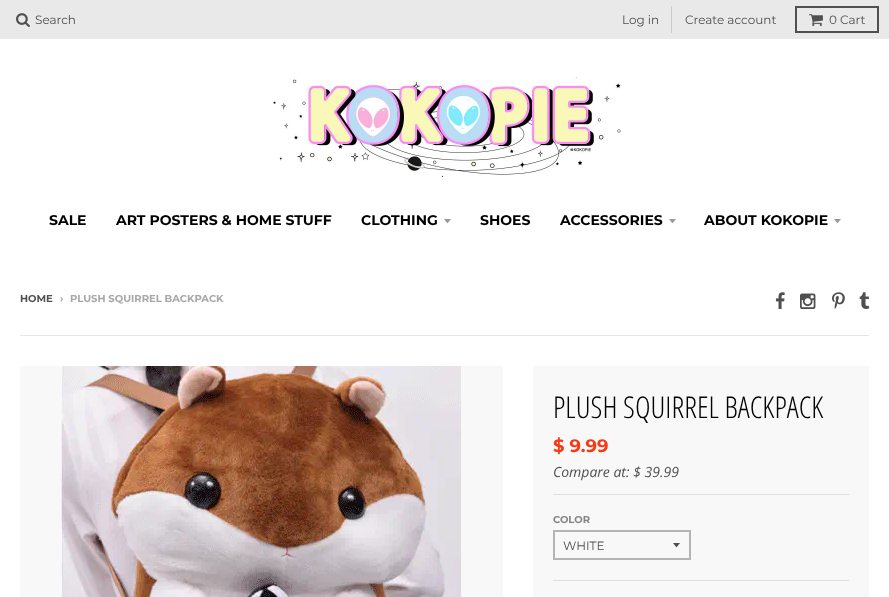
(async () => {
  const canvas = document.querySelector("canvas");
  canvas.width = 889;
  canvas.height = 597;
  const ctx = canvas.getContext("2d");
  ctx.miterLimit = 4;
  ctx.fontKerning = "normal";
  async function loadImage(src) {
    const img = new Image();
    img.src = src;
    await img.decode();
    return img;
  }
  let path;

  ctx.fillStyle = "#ffffff";
  ctx.fillRect(0, 0, 889, 597);
  ctx.fillStyle = "#e9e9e9";
  ctx.fillRect(0, 0, 889, 39);
  ctx.drawImage(await loadImage("img/1.png"), 16, 13, 14, 14);
  ctx.fillStyle = "#cacaca";
  ctx.fillRect(671, 6, 1, 27);
  ctx.strokeStyle = "#505050";
  ctx.lineWidth = 2;
  ctx.strokeRect(796, 7, 82, 25);
  ctx.drawImage(await loadImage("img/2.png"), 809, 14, 14, 12);
  ctx.drawImage(await loadImage("img/3.png"), 273, 77, 348, 100);
  ctx.fillStyle = "#999999";
  path = new Path2D("M444 219C448.5 224.5 446.5 224.5 451 219Z");
  ctx.fill(path);
  path = new Path2D("M669 219C673.5 224.5 671.5 224.5 676 219Z");
  ctx.fill(path);
  path = new Path2D("M834 219C838.5 224.5 836.5 224.5 841 219Z");
  ctx.fill(path);
  ctx.drawImage(await loadImage("img/4.png"), 775, 292, 10, 17);
  ctx.drawImage(await loadImage("img/5.png"), 800, 293, 16, 16);
  ctx.drawImage(await loadImage("img/6.png"), 832, 292, 13, 17);
  ctx.drawImage(await loadImage("img/7.png"), 859, 292, 11, 17);
  ctx.fillStyle = "#e5e5e5";
  ctx.fillRect(20, 335, 849, 1);
  ctx.fillStyle = "#f8f8f8";
  ctx.fillRect(20, 366, 483, 231);
  ctx.drawImage(await loadImage("img/8.png"), 61, 366, 400, 231);
  for (const [x, y, w, h, color] of [
    [533, 366, 336, 231, "#f8f8f8"],
    [553, 494, 296, 1, "#dfdfdf"],
    [553, 580, 296, 1, "#dfdfdf"],
  ]) {
    ctx.fillStyle = color;
    ctx.fillRect(x, y, w, h);
  }
  ctx.fillStyle = "#4f4f4f";
  path = new Path2D("M673 543C677.5 548.5 675.5 548.5 680 543Z");
  ctx.fill(path);
  ctx.strokeStyle = "#b4b4b4";
  ctx.strokeRect(554, 531, 136, 28);
  ctx.font = "12px Montserrat";
  for (const [text, x, y] of [
    ["Search", 35, 24],
    ["Log in", 622, 24],
    ["Create account", 685, 24],
    ["0 Cart", 829, 24],
  ]) {
    ctx.fillText(text, x, y);
  }
  ctx.font = "bold 14px Montserrat";
  ctx.fillStyle = "#000000";
  for (const [text, x, y] of [
    ["SALE", 49, 225],
    ["ART POSTERS & HOME STUFF", 116, 225],
    ["CLOTHING", 361, 225],
    ["SHOES", 480, 225],
    ["ACCESSORIES", 560, 225],
    ["ABOUT KOKOPIE", 704, 225],
  ]) {
    ctx.fillText(text, x, y);
  }
  ctx.font = "bold 10px Montserrat";
  ctx.fillStyle = "#4f4f4f";
  ctx.fillText("HOME", 20, 302);
  ctx.fillStyle = "#a7a7a7";
  ctx.fillText("›", 60, 302);
  ctx.fillText("PLUSH SQUIRREL BACKPACK", 70, 302);
  ctx.font = "300 30px Open Sans Condensed";
  ctx.fillStyle = "#000000";
  ctx.fillText("PLUSH SQUIRREL BACKPACK", 553, 418);
  ctx.font = "bold 18px Montserrat";
  ctx.fillStyle = "#f73916";
  ctx.fillText("$ 9.99", 553, 452);
  ctx.font = "italic 14px Open Sans";
  ctx.fillStyle = "#4f4f4f";
  ctx.fillText("Compare at: $ 39.99", 553, 477);
  ctx.font = "bold 10px Montserrat";
  ctx.fillStyle = "#838383";
  ctx.fillText("COLOR", 553, 523);
  ctx.font = "12px Montserrat";
  ctx.fillStyle = "#4f4f4f";
  ctx.fillText("WHITE", 563, 550);
})();
